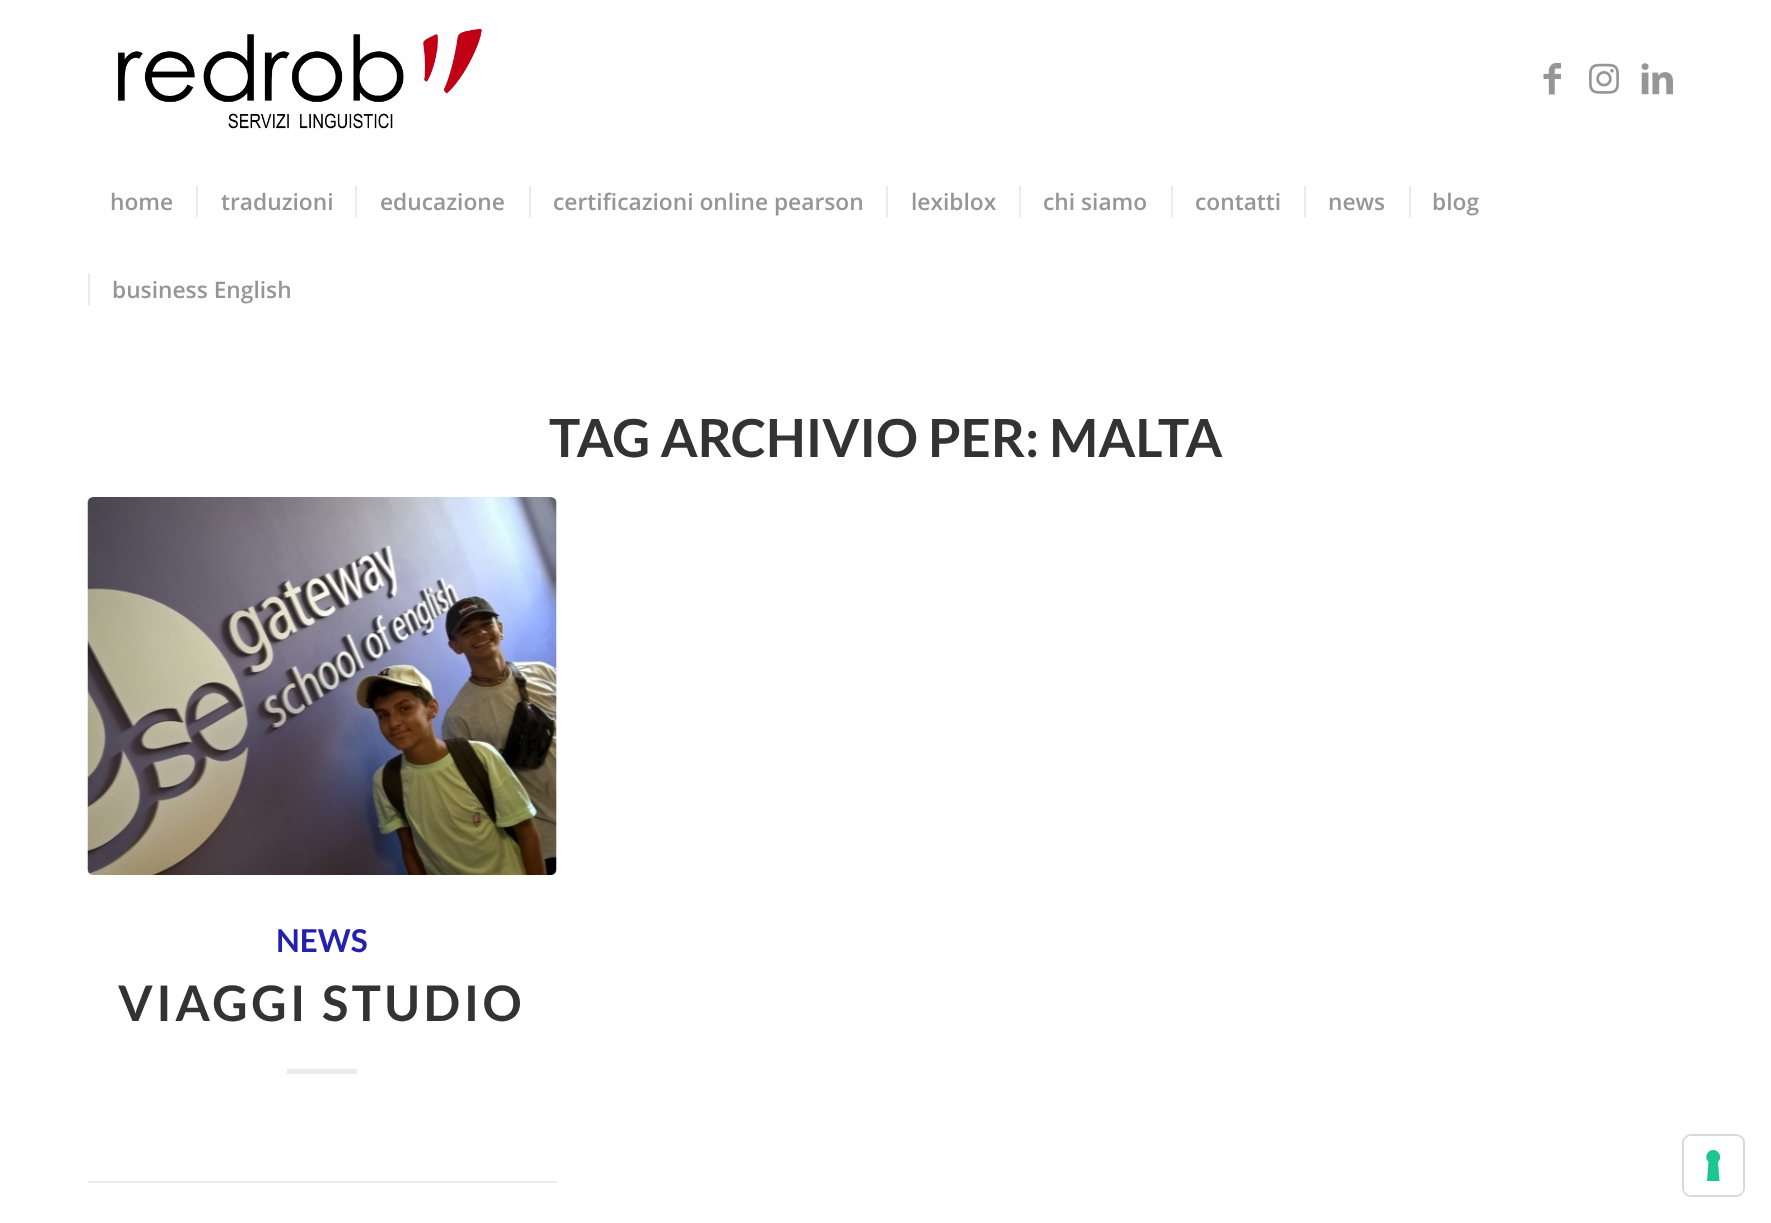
(async () => {
  const canvas = document.querySelector("canvas");
  canvas.width = 1771;
  canvas.height = 1223;
  const ctx = canvas.getContext("2d");
  ctx.miterLimit = 4;
  ctx.fontKerning = "normal";
  async function loadImage(src) {
    const img = new Image();
    img.src = src;
    await img.decode();
    return img;
  }
  let path;

  ctx.fillStyle = "#ffffff";
  ctx.fillRect(0, 0, 1771, 1223);
  ctx.drawImage(await loadImage("img/1.png"), 117, 28, 365, 101);
  ctx.drawImage(await loadImage("img/2.png"), 1543, 63, 18, 32);
  ctx.drawImage(await loadImage("img/3.png"), 1589, 63, 30, 31);
  ctx.drawImage(await loadImage("img/4.png"), 1641, 63, 32, 32);
  for (const [x, y, w, h, color] of [
    [196, 186, 2, 31, "#ebebeb"],
    [355, 186, 2, 31, "#ebebeb"],
    [529, 186, 2, 31, "#ebebeb"],
    [886, 186, 2, 31, "#ebebeb"],
    [1019, 186, 2, 31, "#ebebeb"],
    [1171, 186, 2, 31, "#ebebeb"],
    [1304, 186, 2, 31, "#ebebeb"],
    [1409, 186, 2, 31, "#ebebeb"],
    [88, 273, 2, 32, "#ebebeb"],
  ]) {
    ctx.fillStyle = color;
    ctx.fillRect(x, y, w, h);
  }
  ctx.fillStyle = "#f8f8f8";
  ctx.beginPath();
  ctx.roundRect(88, 497, 469, 378, 5);
  ctx.fill();
  ctx.drawImage(await loadImage("img/5.png"), 87, 497, 470, 378);
  ctx.fillStyle = "#ebebeb";
  ctx.fillRect(287, 1069, 70, 5);
  ctx.fillRect(88, 1181, 469, 2);
  ctx.beginPath();
  ctx.roundRect(1683, 1135, 61, 61, 8);
  ctx.strokeStyle = "#d9d9d9";
  ctx.lineWidth = 2;
  ctx.stroke();
  ctx.fillStyle = "#ffffff";
  ctx.beginPath();
  ctx.roundRect(1684, 1136, 59, 59, 7);
  ctx.fill();
  ctx.fillStyle = "#1cc691";
  path = new Path2D("M1713 1150C1719.5 1150 1722.5 1158 1718 1162L1719.5 1181H1707L1708.5 1162C1704 1158 1707 1150 1713 1150Z");
  ctx.fill(path, "evenodd");
  ctx.font = "600 22.75px Open Sans";
  ctx.fillStyle = "#969696";
  for (const [text, x, y] of [
    ["home", 110, 210],
    ["traduzioni", 221, 210],
    ["educazione", 380, 210],
    ["certificazioni online pearson", 553, 210],
    ["lexiblox", 911, 210],
    ["chi siamo", 1043, 210],
    ["contatti", 1195, 210],
    ["news", 1328, 210],
    ["blog", 1432, 210],
    ["business English", 112, 298],
  ]) {
    ctx.fillText(text, x, y);
  }
  ctx.font = "bold 52.5px Lato";
  ctx.fillStyle = "#333333";
  ctx.fillText("TAG ARCHIVIO PER: MALTA", 549, 457);
  ctx.font = "bold 31.5px Lato";
  ctx.fillStyle = "#2421ad";
  ctx.fillText("NEWS", 276, 952);
  ctx.letterSpacing = "3.5px";
  ctx.font = "bold 49px Lato";
  ctx.fillStyle = "#333333";
  ctx.fillText("VIAGGI STUDIO", 118, 1021);
})();
